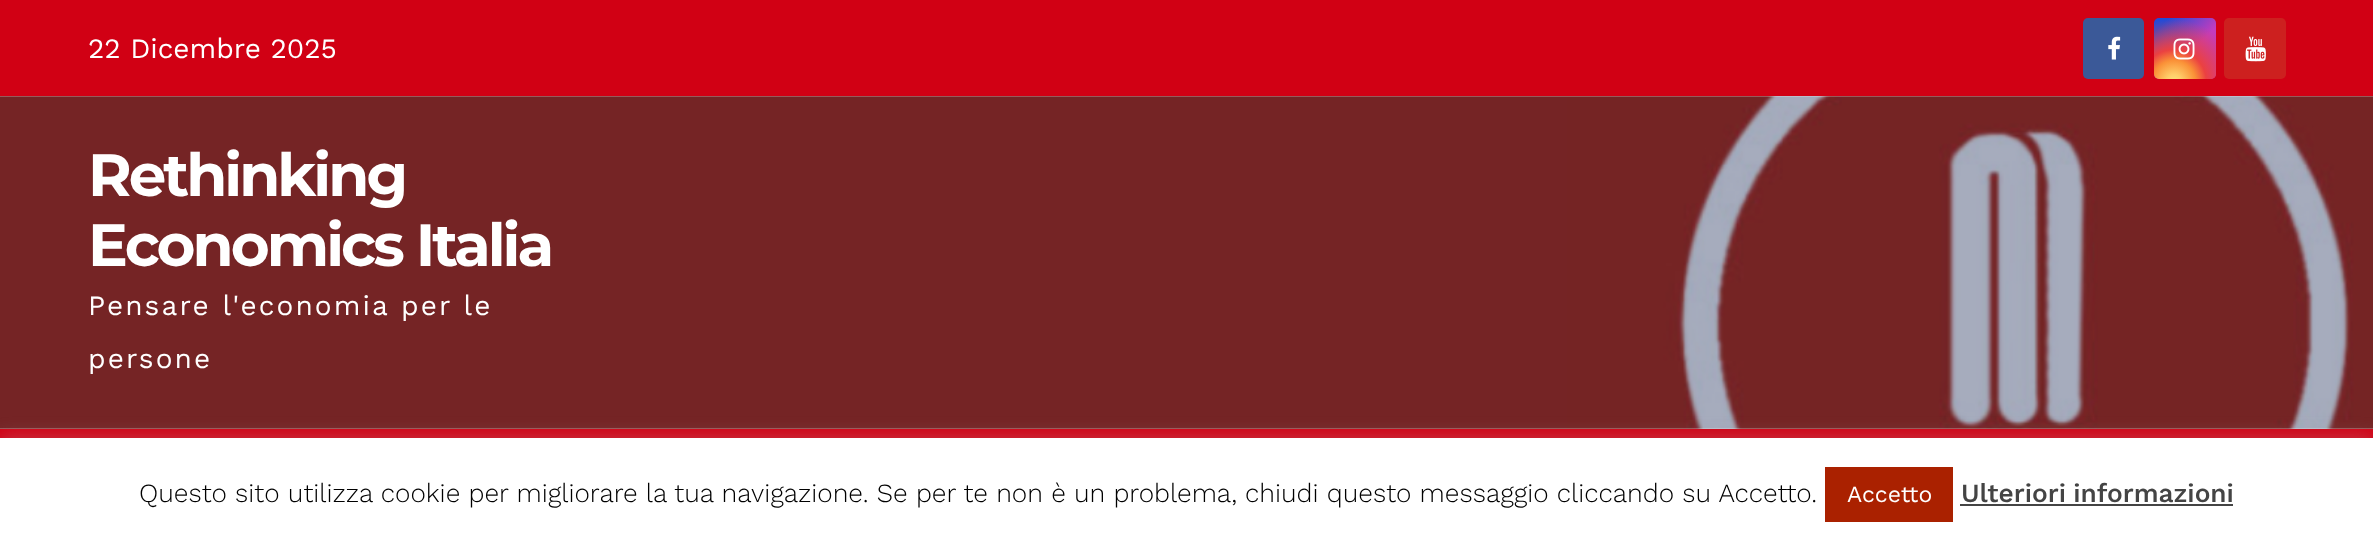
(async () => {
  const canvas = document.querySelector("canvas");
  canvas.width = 2373;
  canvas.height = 541;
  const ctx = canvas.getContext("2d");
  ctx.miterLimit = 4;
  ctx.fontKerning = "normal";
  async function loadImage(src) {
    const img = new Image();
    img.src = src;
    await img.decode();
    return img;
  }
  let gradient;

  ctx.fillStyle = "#ffffff";
  ctx.fillRect(0, 0, 2373, 541);
  ctx.fillStyle = "#d10014";
  ctx.fillRect(0, 0, 2373, 96);
  ctx.fillStyle = "#3b5998";
  ctx.beginPath();
  ctx.roundRect(2083, 18, 61, 61, 5);
  ctx.fill();
  ctx.drawImage(await loadImage("img/1.png"), 2108, 36, 13, 24);
  gradient = ctx.createLinearGradient(2154, 18, 2216, 79);
  gradient.addColorStop(0.12, "#234bd7");
  gradient.addColorStop(0.58, "#c33cbe");
  ctx.fillStyle = gradient;
  ctx.beginPath();
  ctx.roundRect(2154, 18, 62, 61, 5);
  ctx.fill();
  gradient = ctx.createRadialGradient(2174, 82, 0, 2174, 82, 77);
  gradient.addColorStop(0, "#ffe17d");
  gradient.addColorStop(0.1, "#ffcd69");
  gradient.addColorStop(0.28, "#fa9137");
  gradient.addColorStop(0.42, "#eb4141");
  gradient.addColorStop(0.82, "rgba(235, 65, 65, 0)");
  ctx.fillStyle = gradient;
  ctx.beginPath();
  ctx.roundRect(2154, 18, 62, 61, 5);
  ctx.fill();
  ctx.drawImage(await loadImage("img/2.png"), 2173, 38, 22, 22);
  ctx.fillStyle = "#cd201f";
  ctx.beginPath();
  ctx.roundRect(2224, 18, 62, 61, 5);
  ctx.fill();
  ctx.drawImage(await loadImage("img/3.png"), 2245, 36, 21, 26);
  ctx.drawImage(await loadImage("img/4.png"), 0, 96, 2373, 333);
  ctx.fillStyle = "#d10014";
  ctx.fillRect(0, 429, 2373, 9);
  ctx.fillStyle = "rgba(172, 171, 171, 0.3)";
  ctx.filter = "blur(9px)";
  ctx.beginPath();
  ctx.rect(0, 436, 2373, 105);
  ctx.fill();
  ctx.filter = "none";
  for (const [x, y, w, h, color] of [
    [0, 438, 2373, 103, "#ffffff"],
    [1825, 467, 128, 55, "#aa2100"],
    [1960, 504, 273, 2, "#444444"],
  ]) {
    ctx.fillStyle = color;
    ctx.fillRect(x, y, w, h);
  }
  ctx.font = "28px Work Sans";
  ctx.fillStyle = "#ffffff";
  ctx.fillText("22 Dicembre 2025", 88, 58);
  ctx.letterSpacing = "-3px";
  ctx.font = "bold 59.5px Montserrat";
  ctx.fillText("Rethinking", 88, 196);
  ctx.fillText("Economics Italia", 88, 266);
  ctx.letterSpacing = "2.1px";
  ctx.font = "28px Work Sans";
  ctx.fillText("Pensare l'economia per le", 88, 315);
  ctx.fillText("persone", 88, 368);
  ctx.letterSpacing = "0px";
  ctx.font = "300 26.25px Work Sans";
  ctx.fillStyle = "#000000";
  ctx.fillText("Questo sito utilizza cookie per migliorare la tua navigazione. Se per te non è un problema, chiudi questo messaggio cliccando su Accetto.", 139, 502);
  ctx.font = "23px Work Sans";
  ctx.fillStyle = "#ffffff";
  ctx.fillText("Accetto", 1847, 502);
  ctx.wordSpacing = "-1px";
  ctx.font = "500 26.25px Work Sans";
  ctx.fillStyle = "#444444";
  ctx.fillText("Ulteriori informazioni", 1961, 502);
})();
